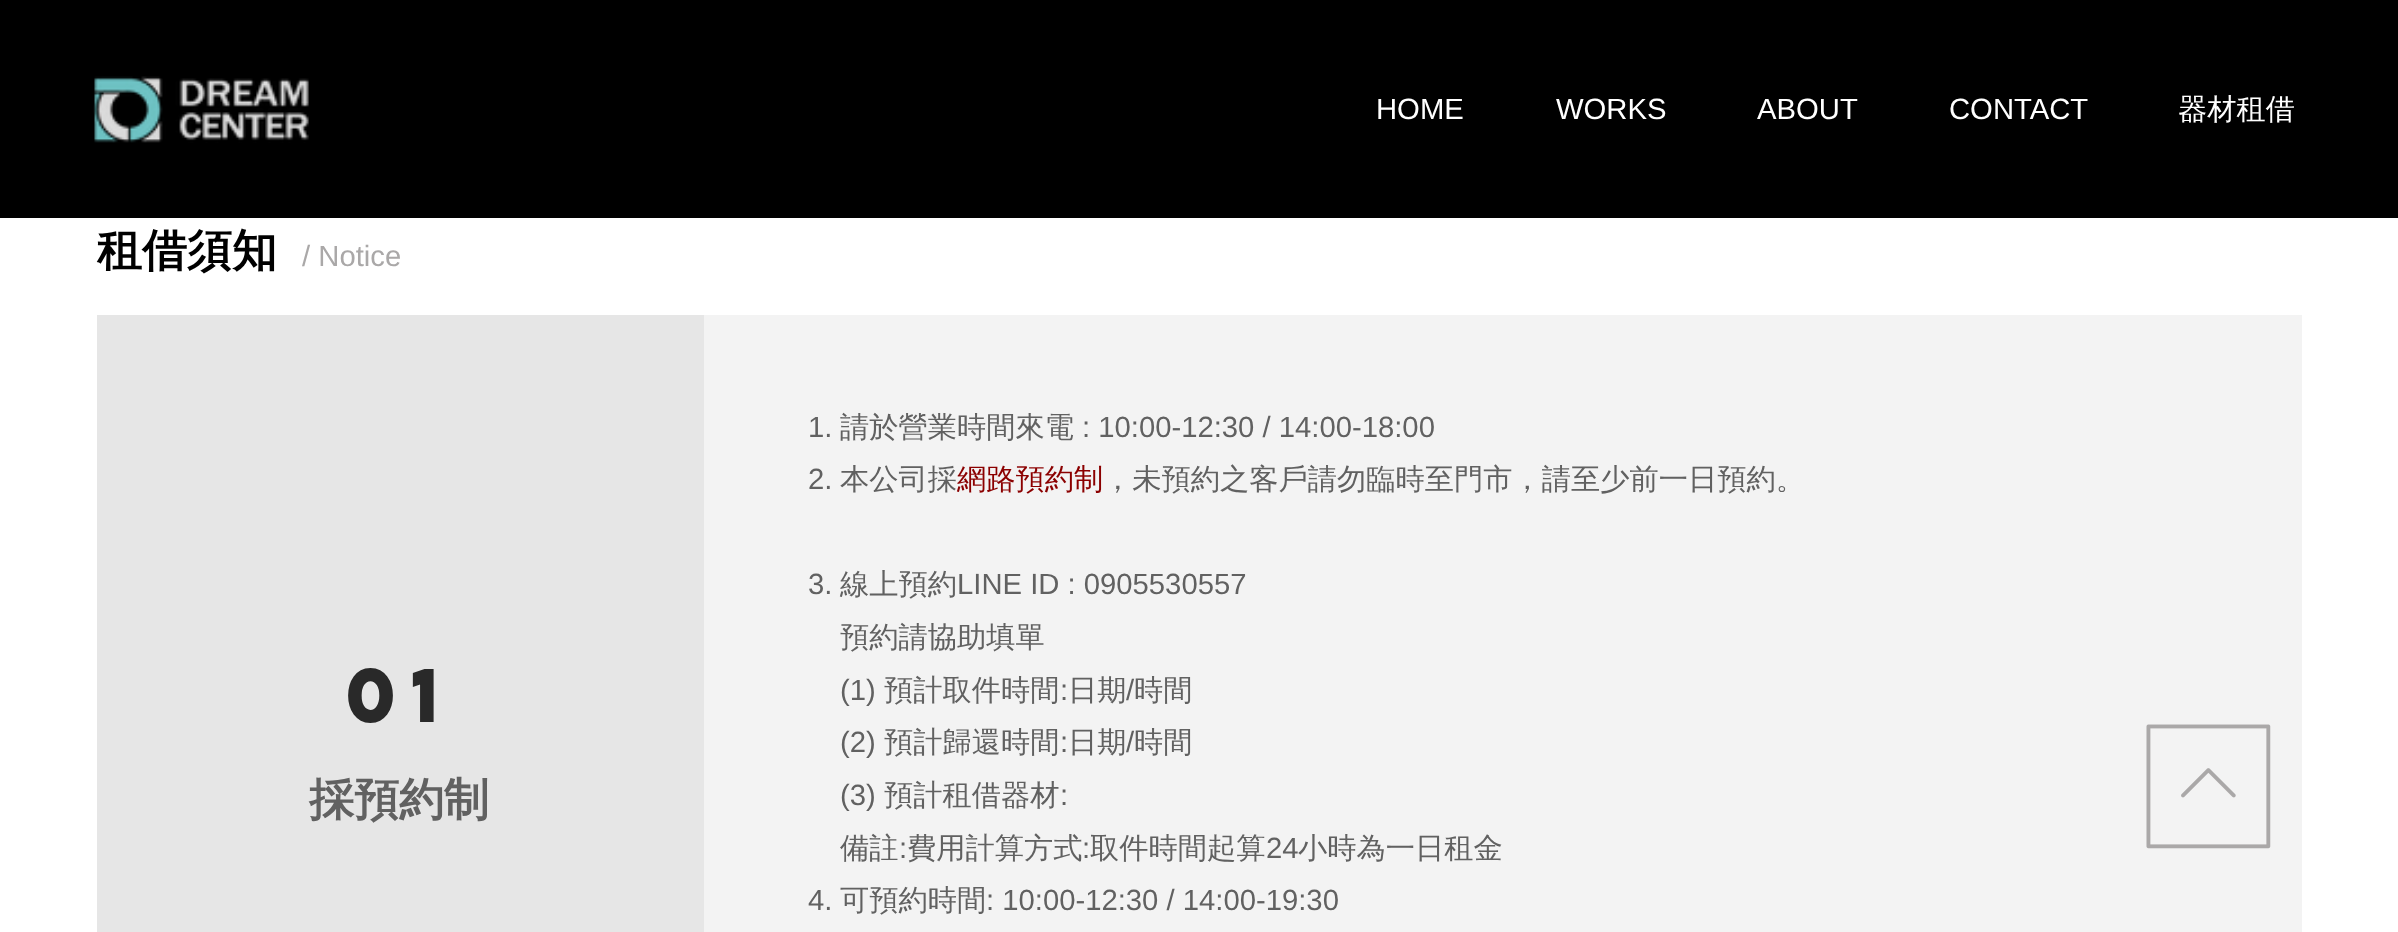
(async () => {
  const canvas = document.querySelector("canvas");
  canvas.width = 2398;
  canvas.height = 932;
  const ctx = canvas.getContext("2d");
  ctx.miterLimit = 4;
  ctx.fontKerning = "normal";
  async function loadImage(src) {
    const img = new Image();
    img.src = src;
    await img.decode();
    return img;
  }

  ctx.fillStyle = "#ffffff";
  ctx.fillRect(0, 0, 2398, 932);
  ctx.fillStyle = "#000000";
  ctx.fillRect(0, 0, 2398, 218);
  ctx.drawImage(await loadImage("img/1.png"), 93, 76, 216, 67);
  ctx.fillStyle = "#e6e6e6";
  ctx.fillRect(97, 315, 607, 617);
  ctx.fillStyle = "#f3f3f3";
  ctx.fillRect(704, 315, 1598, 617);
  ctx.drawImage(await loadImage("img/2.png"), 2146, 724, 125, 125);
  ctx.font = "29.25px Liberation Sans";
  ctx.fillStyle = "#ffffff";
  for (const [text, x, y] of [
    ["HOME", 1376, 119],
    ["WORKS", 1556, 119],
    ["ABOUT", 1757, 119],
    ["CONTACT", 1949, 119],
  ]) {
    ctx.fillText(text, x, y);
  }
  ctx.font = "500 29.25px WenQuanYi Zen Hei";
  ctx.fillText("器材租借", 2178, 119);
  ctx.font = "bold 45px WenQuanYi Zen Hei";
  ctx.fillStyle = "#000000";
  ctx.fillText("租借須知", 97, 266);
  ctx.font = "29.25px Liberation Sans";
  ctx.fillStyle = "#aaa8a8";
  ctx.fillText("/ Notice", 302, 266);
  ctx.font = "bold 68px 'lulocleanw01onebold'";
  ctx.fillStyle = "#292929";
  ctx.fillText("01", 346, 722);
  ctx.font = "bold 45px WenQuanYi Zen Hei";
  ctx.fillStyle = "#616161";
  ctx.fillText("採預約制", 309, 815);
  ctx.font = "29.25px Liberation Sans";
  ctx.fillText("1.", 808, 437);
  ctx.font = "500 29.25px WenQuanYi Zen Hei";
  ctx.fillText("請於營業時間來電", 840, 437);
  ctx.font = "29.25px Liberation Sans";
  ctx.fillText(": 10:00-12:30 / 14:00-18:00", 1082, 437);
  ctx.fillText("2.", 808, 489);
  ctx.font = "500 29.25px WenQuanYi Zen Hei";
  ctx.fillText("本公司採", 840, 489);
  ctx.fillStyle = "#8b0000";
  ctx.fillText("網路預約制", 957, 489);
  ctx.fillStyle = "#616161";
  ctx.fillText("，未預約之客戶請勿臨時至門市，請至少前一日預約。", 1103, 489);
  ctx.font = "29.25px Liberation Sans";
  ctx.fillText("3.", 808, 594);
  ctx.font = "500 29.25px WenQuanYi Zen Hei";
  ctx.fillText("線上預約", 840, 594);
  ctx.font = "29.25px Liberation Sans";
  ctx.fillText("LINE ID : 0905530557", 957, 594);
  ctx.font = "500 29.25px WenQuanYi Zen Hei";
  ctx.fillText("預約請協助填單", 840, 647);
  ctx.font = "29.25px Liberation Sans";
  ctx.fillText("(1)", 840, 700);
  ctx.font = "500 29.25px WenQuanYi Zen Hei";
  ctx.fillText("預計取件時間", 884, 700);
  ctx.font = "29.25px Liberation Sans";
  ctx.fillText(":", 1060, 700);
  ctx.font = "500 29.25px WenQuanYi Zen Hei";
  ctx.fillText("日期", 1068, 700);
  ctx.font = "29.25px Liberation Sans";
  ctx.fillText("/", 1126, 700);
  ctx.font = "500 29.25px WenQuanYi Zen Hei";
  ctx.fillText("時間", 1134, 700);
  ctx.font = "29.25px Liberation Sans";
  ctx.fillText("(2)", 840, 752);
  ctx.font = "500 29.25px WenQuanYi Zen Hei";
  ctx.fillText("預計歸還時間", 884, 752);
  ctx.font = "29.25px Liberation Sans";
  ctx.fillText(":", 1060, 752);
  ctx.font = "500 29.25px WenQuanYi Zen Hei";
  ctx.fillText("日期", 1068, 752);
  ctx.font = "29.25px Liberation Sans";
  ctx.fillText("/", 1126, 752);
  ctx.font = "500 29.25px WenQuanYi Zen Hei";
  ctx.fillText("時間", 1134, 752);
  ctx.font = "29.25px Liberation Sans";
  ctx.fillText("(3)", 840, 805);
  ctx.font = "500 29.25px WenQuanYi Zen Hei";
  ctx.fillText("預計租借器材", 884, 805);
  ctx.font = "29.25px Liberation Sans";
  ctx.fillText(":", 1060, 805);
  ctx.font = "500 29.25px WenQuanYi Zen Hei";
  ctx.fillText("備註", 840, 858);
  ctx.font = "29.25px Liberation Sans";
  ctx.fillText(":", 899, 858);
  ctx.font = "500 29.25px WenQuanYi Zen Hei";
  ctx.fillText("費用計算方式", 907, 858);
  ctx.font = "29.25px Liberation Sans";
  ctx.fillText(":", 1082, 858);
  ctx.font = "500 29.25px WenQuanYi Zen Hei";
  ctx.fillText("取件時間起算", 1090, 858);
  ctx.font = "29.25px Liberation Sans";
  ctx.fillText("24", 1266, 858);
  ctx.font = "500 29.25px WenQuanYi Zen Hei";
  ctx.fillText("小時為一日租金", 1298, 858);
  ctx.font = "29.25px Liberation Sans";
  ctx.fillText("4.", 808, 910);
  ctx.font = "500 29.25px WenQuanYi Zen Hei";
  ctx.fillText("可預約時間", 840, 910);
  ctx.font = "29.25px Liberation Sans";
  ctx.fillText(": 10:00-12:30 / 14:00-19:30", 986, 910);
})();
